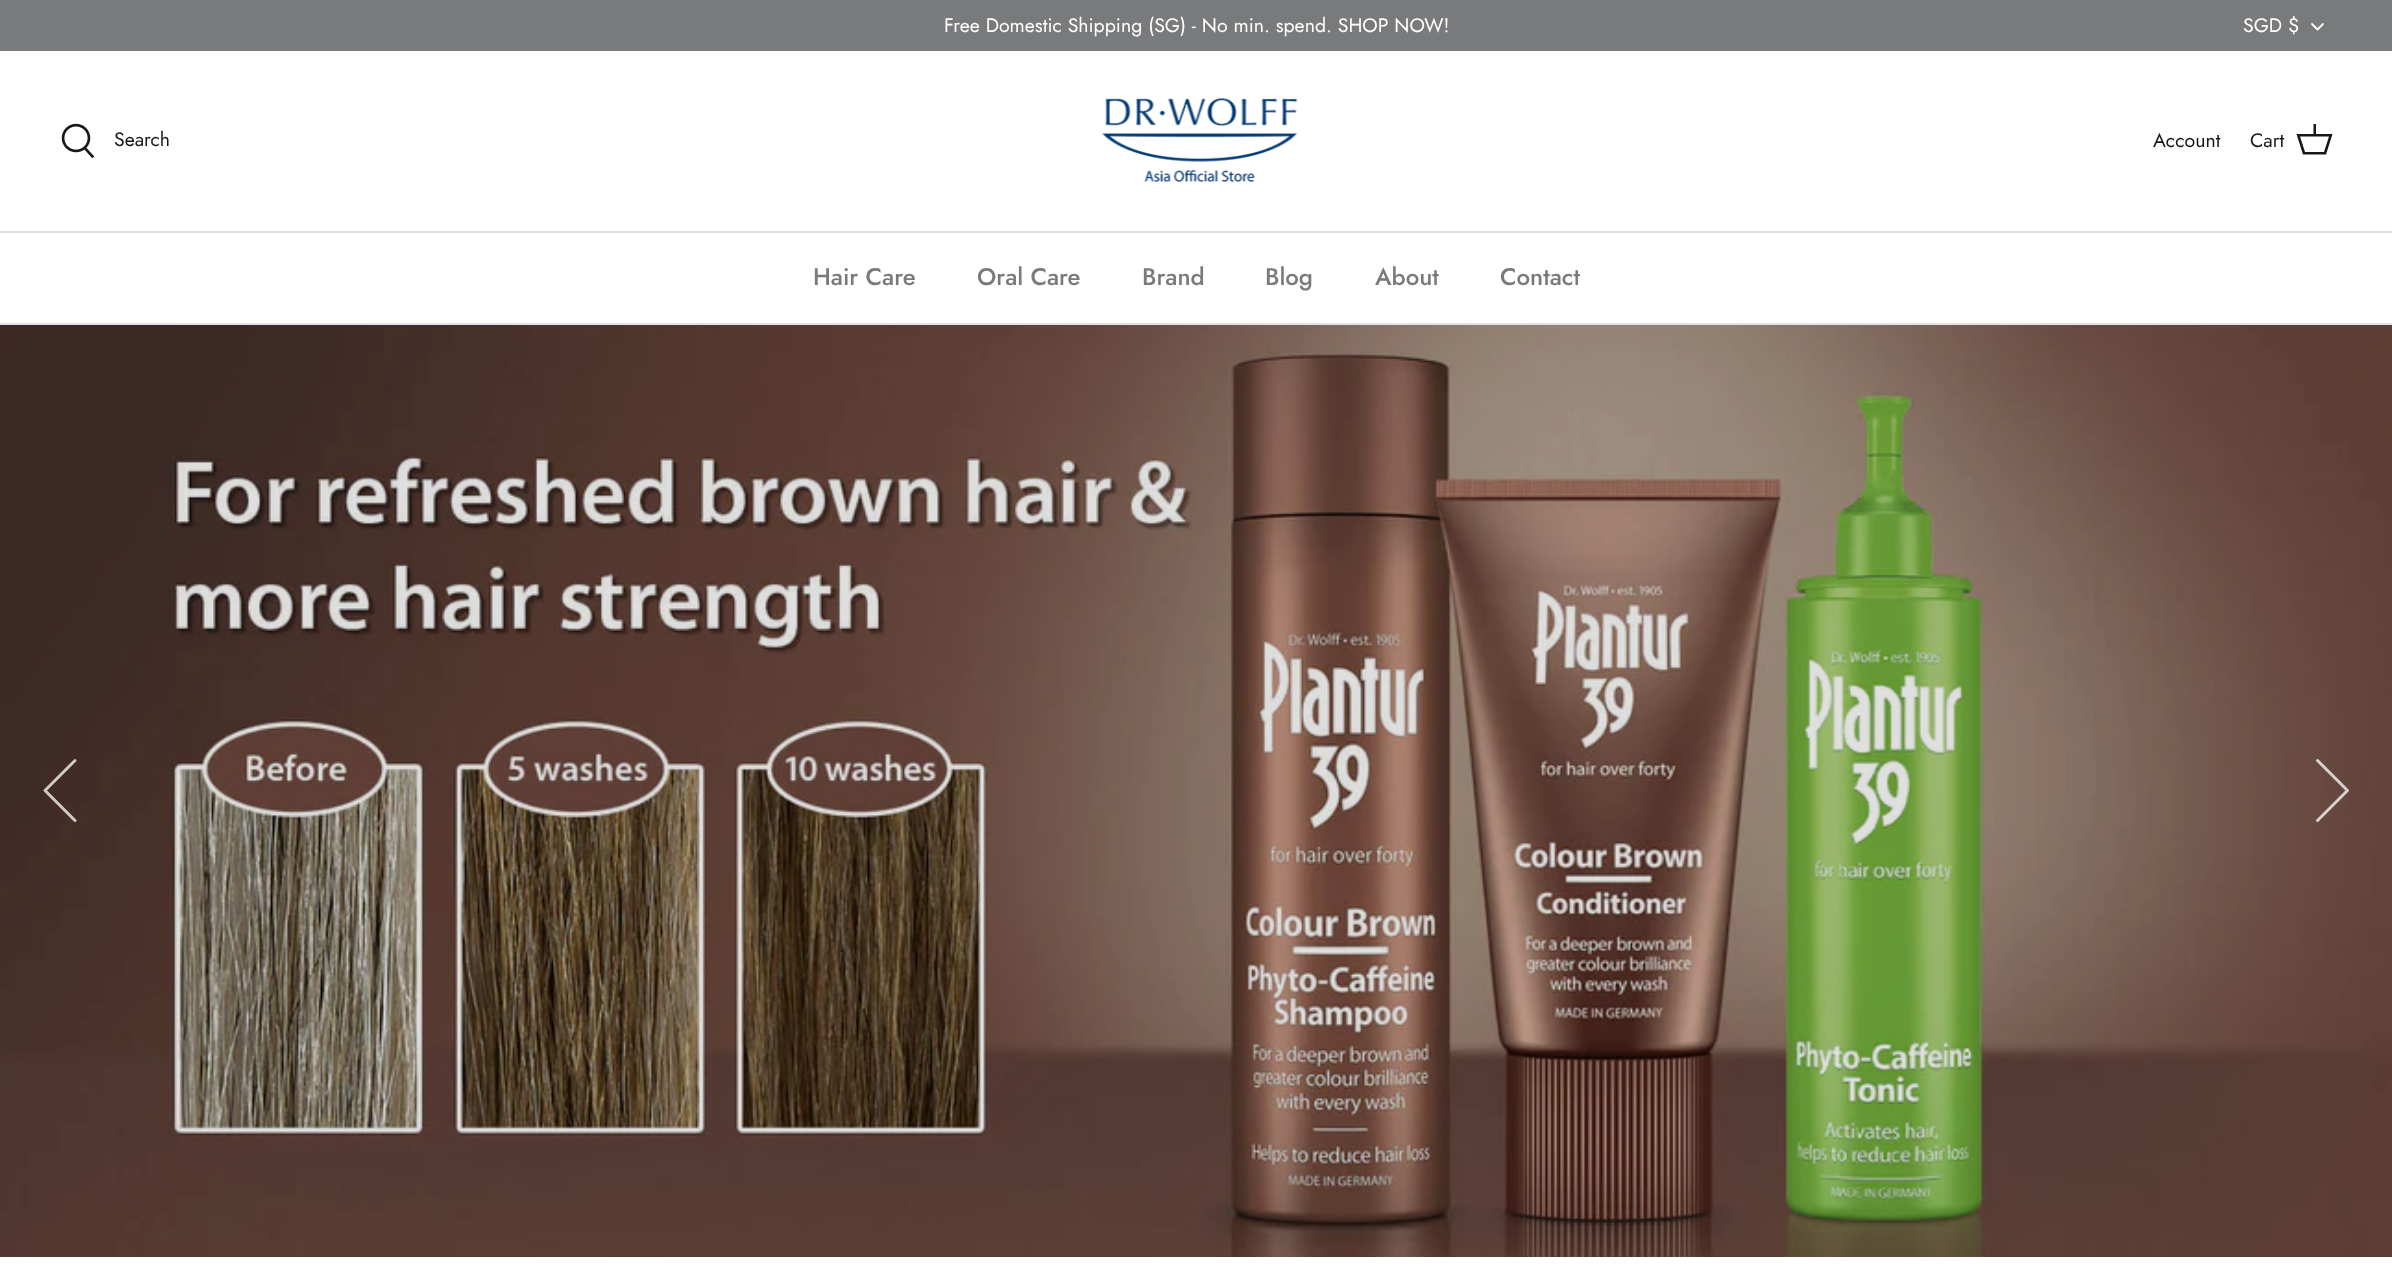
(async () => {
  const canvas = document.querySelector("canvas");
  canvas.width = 2392;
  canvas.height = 1270;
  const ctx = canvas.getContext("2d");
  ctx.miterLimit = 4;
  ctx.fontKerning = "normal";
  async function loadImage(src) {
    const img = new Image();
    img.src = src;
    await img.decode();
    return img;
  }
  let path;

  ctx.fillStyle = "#ffffff";
  ctx.fillRect(0, 0, 2392, 1270);
  ctx.fillStyle = "#787a7c";
  ctx.fillRect(0, 0, 2392, 51);
  path = new Path2D("M2312 24L2317.5 29.5L2323 24");
  ctx.strokeStyle = "#ffffff";
  ctx.lineWidth = 1.8;
  ctx.lineCap = "round";
  ctx.lineJoin = "round";
  ctx.stroke(path);
  ctx.fillStyle = "#dfe3e8";
  ctx.fillRect(0, 231, 2392, 2);
  ctx.drawImage(await loadImage("img/1.png"), 61, 123, 34, 36);
  ctx.drawImage(await loadImage("img/2.png"), 1102, 98, 196, 84);
  ctx.fillStyle = "#171717";
  path = new Path2D("M2313.5 134V124H2316V134H2332.5L2326 154.5H2303L2296.5 134ZM2300 136.5L2305 152H2324L2329 136.5Z");
  ctx.fill(path);
  ctx.fillStyle = "#dfe3e8";
  ctx.fillRect(0, 323, 2392, 2);
  ctx.drawImage(await loadImage("img/3.png"), 0, 325, 2392, 932);
  path = new Path2D("M75 820.5L45 790.5L75 760.5");
  ctx.strokeStyle = "rgba(255, 255, 255, 0.75)";
  ctx.lineWidth = 3;
  ctx.stroke(path);
  path = new Path2D("M2317.5 820.5L2347.5 790.5L2317.5 760.5");
  ctx.stroke(path);
  ctx.font = "19.5px Jost";
  ctx.fillStyle = "#ffffff";
  ctx.fillText("Free Domestic Shipping (SG) - No min. spend. SHOP NOW!", 944, 32);
  ctx.fillText("SGD $", 2243, 32);
  ctx.fillStyle = "#171717";
  for (const [text, x, y] of [
    ["Search", 114, 146],
    ["Account", 2153, 147],
    ["Cart", 2250, 147],
  ]) {
    ctx.fillText(text, x, y);
  }
  ctx.font = "500 24px Jost";
  ctx.fillStyle = "#787a7c";
  for (const [text, x, y] of [
    ["Hair Care", 813, 285],
    ["Oral Care", 977, 285],
    ["Brand", 1142, 285],
    ["Blog", 1265, 285],
    ["About", 1375, 285],
    ["Contact", 1500, 285],
  ]) {
    ctx.fillText(text, x, y);
  }
})();
